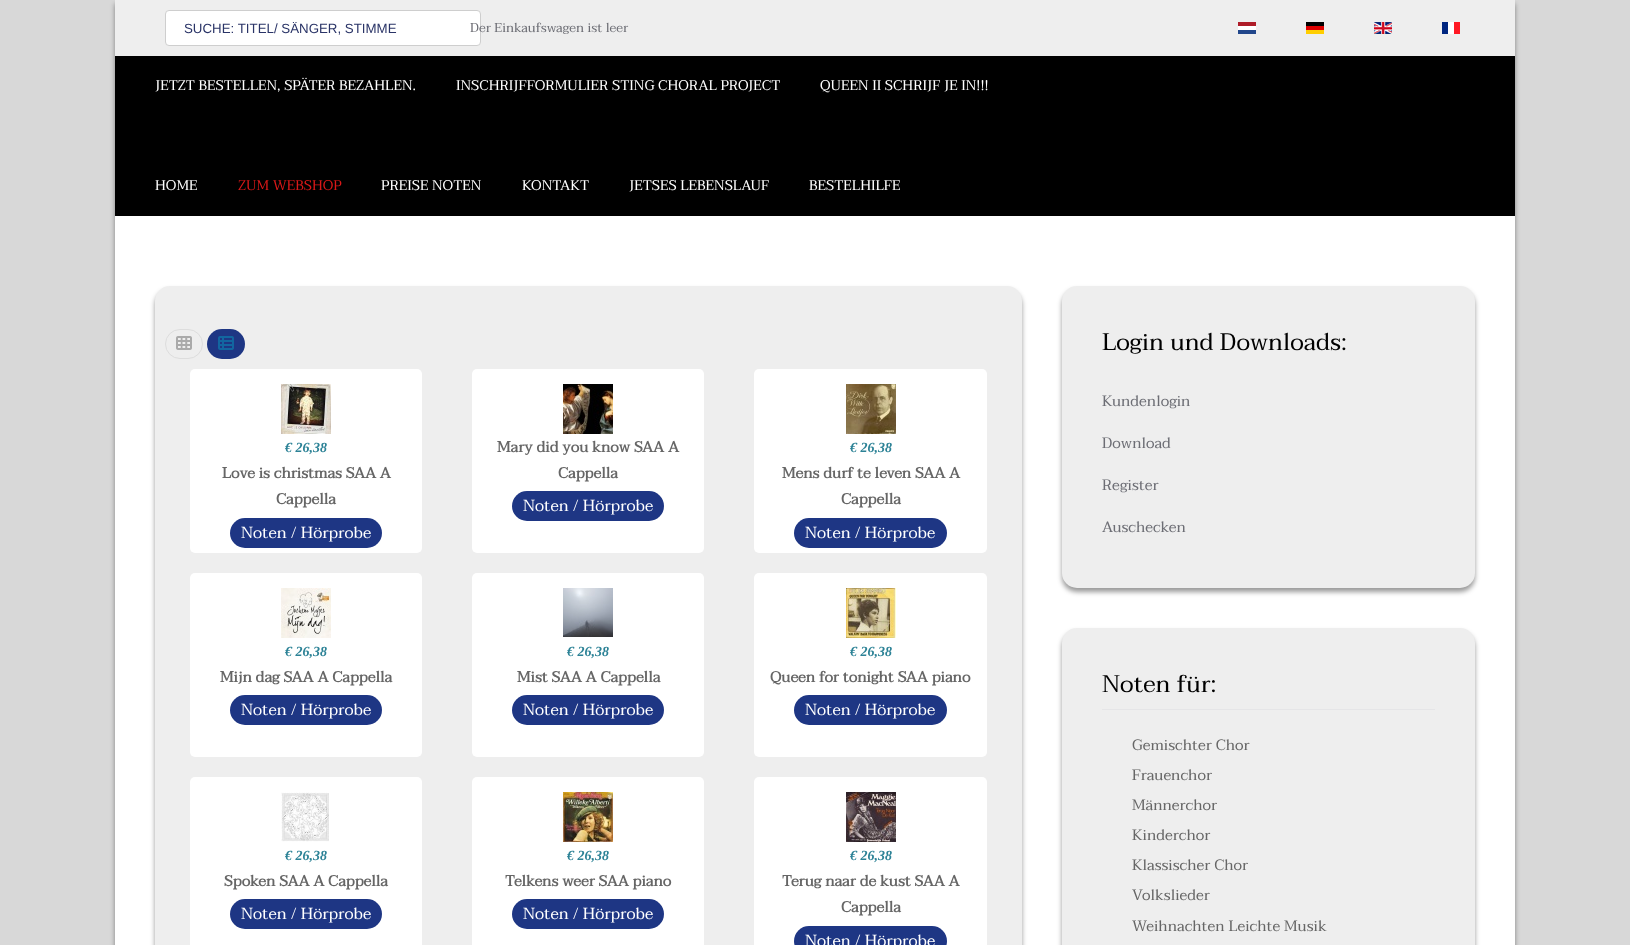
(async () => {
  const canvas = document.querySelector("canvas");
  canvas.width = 1630;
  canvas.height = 945;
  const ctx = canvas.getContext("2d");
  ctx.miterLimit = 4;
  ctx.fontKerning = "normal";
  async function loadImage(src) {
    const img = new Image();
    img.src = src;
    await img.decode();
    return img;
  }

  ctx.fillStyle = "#d8d8d8";
  ctx.fillRect(0, 0, 1630, 945);
  ctx.fillStyle = "rgba(0, 0, 0, 0.4)";
  ctx.filter = "blur(2.5px)";
  ctx.beginPath();
  ctx.rect(115, 4, 1400, 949);
  ctx.fill();
  ctx.filter = "none";
  ctx.fillStyle = "#ffffff";
  ctx.fillRect(115, 216, 1400, 729);
  ctx.fillStyle = "#eeeeee";
  ctx.fillRect(115, 0, 1400, 56);
  ctx.fillStyle = "#ffffff";
  ctx.beginPath();
  ctx.roundRect(165.5, 10.5, 315, 35, 3.5);
  ctx.fill();
  ctx.strokeStyle = "#cecece";
  ctx.stroke();
  ctx.drawImage(await loadImage("img/1.png"), 1238, 22, 18, 12);
  ctx.drawImage(await loadImage("img/2.png"), 1306, 22, 18, 12);
  ctx.drawImage(await loadImage("img/3.png"), 1374, 22, 18, 12);
  ctx.drawImage(await loadImage("img/4.png"), 1442, 22, 18, 12);
  ctx.fillStyle = "#000000";
  ctx.fillRect(115, 56, 1400, 160);
  ctx.fillStyle = "rgba(0, 0, 0, 0.4)";
  ctx.filter = "blur(2.5px)";
  ctx.beginPath();
  ctx.roundRect(155, 290, 867, 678, 15);
  ctx.fill();
  ctx.filter = "none";
  ctx.fillStyle = "#eeeeee";
  ctx.beginPath();
  ctx.roundRect(155, 286, 867, 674, 15);
  ctx.fill();
  ctx.beginPath();
  ctx.roundRect(165.5, 329.5, 37, 29, 14.5);
  ctx.strokeStyle = "#dddddd";
  ctx.stroke();
  ctx.drawImage(await loadImage("img/5.png"), 176, 336, 16, 14);
  ctx.fillStyle = "#1e3684";
  ctx.beginPath();
  ctx.roundRect(207, 329, 38, 30, 15);
  ctx.fill();
  ctx.drawImage(await loadImage("img/6.png"), 218, 336, 16, 14);
  ctx.fillStyle = "#ffffff";
  ctx.beginPath();
  ctx.roundRect(190, 369, 232, 184, 5);
  ctx.fill();
  ctx.drawImage(await loadImage("img/7.png"), 281, 384, 50, 50);
  ctx.fillStyle = "#1e3684";
  ctx.beginPath();
  ctx.roundRect(230, 518, 152, 30, 15);
  ctx.fill();
  ctx.fillStyle = "#ffffff";
  ctx.beginPath();
  ctx.roundRect(472, 369, 232, 184, 5);
  ctx.fill();
  ctx.drawImage(await loadImage("img/8.png"), 563, 384, 50, 50);
  ctx.fillStyle = "#1e3684";
  ctx.beginPath();
  ctx.roundRect(512, 491, 152, 30, 15);
  ctx.fill();
  ctx.fillStyle = "#ffffff";
  ctx.beginPath();
  ctx.roundRect(754, 369, 233, 184, 5);
  ctx.fill();
  ctx.drawImage(await loadImage("img/9.png"), 846, 384, 50, 50);
  ctx.fillStyle = "#1e3684";
  ctx.beginPath();
  ctx.roundRect(794, 518, 153, 30, 15);
  ctx.fill();
  ctx.fillStyle = "#ffffff";
  ctx.beginPath();
  ctx.roundRect(190, 573, 232, 184, 5);
  ctx.fill();
  ctx.drawImage(await loadImage("img/10.png"), 281, 588, 50, 50);
  ctx.fillStyle = "#1e3684";
  ctx.beginPath();
  ctx.roundRect(230, 695, 152, 30, 15);
  ctx.fill();
  ctx.fillStyle = "#ffffff";
  ctx.beginPath();
  ctx.roundRect(472, 573, 232, 184, 5);
  ctx.fill();
  ctx.drawImage(await loadImage("img/11.png"), 563, 588, 50, 49);
  ctx.fillStyle = "#1e3684";
  ctx.beginPath();
  ctx.roundRect(512, 695, 152, 30, 15);
  ctx.fill();
  ctx.fillStyle = "#ffffff";
  ctx.beginPath();
  ctx.roundRect(754, 573, 233, 184, 5);
  ctx.fill();
  ctx.drawImage(await loadImage("img/12.png"), 846, 588, 50, 50);
  ctx.fillStyle = "#1e3684";
  ctx.beginPath();
  ctx.roundRect(794, 695, 153, 30, 15);
  ctx.fill();
  ctx.fillStyle = "#ffffff";
  ctx.beginPath();
  ctx.roundRect(190, 777, 232, 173, 5);
  ctx.fill();
  ctx.drawImage(await loadImage("img/13.png"), 281, 792, 48, 50);
  ctx.fillStyle = "#1e3684";
  ctx.beginPath();
  ctx.roundRect(230, 899, 152, 30, 15);
  ctx.fill();
  ctx.fillStyle = "#ffffff";
  ctx.beginPath();
  ctx.roundRect(472, 777, 232, 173, 5);
  ctx.fill();
  ctx.drawImage(await loadImage("img/14.png"), 563, 792, 50, 50);
  ctx.fillStyle = "#1e3684";
  ctx.beginPath();
  ctx.roundRect(512, 899, 152, 30, 15);
  ctx.fill();
  ctx.fillStyle = "#ffffff";
  ctx.beginPath();
  ctx.roundRect(754, 777, 233, 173, 5);
  ctx.fill();
  ctx.drawImage(await loadImage("img/15.png"), 846, 792, 50, 50);
  ctx.fillStyle = "#1e3684";
  ctx.beginPath();
  ctx.roundRect(794, 926, 153, 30, 15);
  ctx.fill();
  ctx.fillStyle = "rgba(0, 0, 0, 0.4)";
  ctx.filter = "blur(2.5px)";
  ctx.beginPath();
  ctx.roundRect(1062, 290, 413, 302, 15);
  ctx.fill();
  ctx.filter = "none";
  ctx.fillStyle = "#eeeeee";
  ctx.beginPath();
  ctx.roundRect(1062, 286, 413, 302, 15);
  ctx.fill();
  ctx.fillStyle = "rgba(0, 0, 0, 0.4)";
  ctx.filter = "blur(2.5px)";
  ctx.beginPath();
  ctx.roundRect(1062, 632, 413, 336, 15);
  ctx.fill();
  ctx.filter = "none";
  ctx.fillStyle = "#eeeeee";
  ctx.beginPath();
  ctx.roundRect(1062, 628, 413, 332, 15);
  ctx.fill();
  ctx.fillStyle = "#e5e5e7";
  ctx.fillRect(1102, 709, 333, 1);
  ctx.font = "13.3px Liberation Sans";
  ctx.fillStyle = "#2a3467";
  ctx.fillText("SUCHE: TITEL/ SÄNGER, STIMME", 184, 33);
  ctx.font = "13px Taviraj";
  ctx.fillStyle = "#6c6d74";
  ctx.fillText("Der Einkaufswagen ist leer", 470, 32);
  ctx.font = "14px Taviraj";
  ctx.fillStyle = "#ffffff";
  for (const [text, x, y] of [
    ["JETZT BESTELLEN, SPÄTER BEZAHLEN.", 155, 90],
    ["INSCHRIJFFORMULIER STING CHORAL PROJECT", 456, 90],
    ["QUEEN II SCHRIJF JE IN!!!", 820, 90],
    ["HOME", 155, 190],
  ]) {
    ctx.fillText(text, x, y);
  }
  ctx.fillStyle = "#d91818";
  ctx.fillText("ZUM WEBSHOP", 238, 190);
  ctx.fillStyle = "#ffffff";
  for (const [text, x, y] of [
    ["PREISE NOTEN", 381, 190],
    ["KONTAKT", 522, 190],
    ["JETSES LEBENSLAUF", 629, 190],
    ["BESTELHILFE", 809, 190],
  ]) {
    ctx.fillText(text, x, y);
  }
  ctx.font = "italic bold 14px Liberation Serif";
  ctx.fillStyle = "#2c8296";
  ctx.fillText("€ 26,38", 285, 452);
  ctx.font = "bold 15px Taviraj";
  ctx.fillStyle = "#666666";
  ctx.fillText("Love is christmas SAA A", 222, 478);
  ctx.fillText("Cappella", 276, 504);
  ctx.font = "16px Taviraj";
  ctx.fillStyle = "#ffffff";
  ctx.fillText("Noten / Hörprobe", 241, 538);
  ctx.font = "bold 15px Taviraj";
  ctx.fillStyle = "#666666";
  ctx.fillText("Mary did you know SAA A", 497, 452);
  ctx.fillText("Cappella", 558, 478);
  ctx.font = "16px Taviraj";
  ctx.fillStyle = "#ffffff";
  ctx.fillText("Noten / Hörprobe", 523, 511);
  ctx.font = "italic bold 14px Liberation Serif";
  ctx.fillStyle = "#2c8296";
  ctx.fillText("€ 26,38", 850, 452);
  ctx.font = "bold 15px Taviraj";
  ctx.fillStyle = "#666666";
  ctx.fillText("Mens durf te leven SAA A", 782, 478);
  ctx.fillText("Cappella", 841, 504);
  ctx.font = "16px Taviraj";
  ctx.fillStyle = "#ffffff";
  ctx.fillText("Noten / Hörprobe", 805, 538);
  ctx.font = "italic bold 14px Liberation Serif";
  ctx.fillStyle = "#2c8296";
  ctx.fillText("€ 26,38", 285, 656);
  ctx.font = "bold 15px Taviraj";
  ctx.fillStyle = "#666666";
  ctx.fillText("Mijn dag SAA A Cappella", 220, 682);
  ctx.font = "16px Taviraj";
  ctx.fillStyle = "#ffffff";
  ctx.fillText("Noten / Hörprobe", 241, 715);
  ctx.font = "italic bold 14px Liberation Serif";
  ctx.fillStyle = "#2c8296";
  ctx.fillText("€ 26,38", 567, 656);
  ctx.font = "bold 15px Taviraj";
  ctx.fillStyle = "#666666";
  ctx.fillText("Mist SAA A Cappella", 517, 682);
  ctx.font = "16px Taviraj";
  ctx.fillStyle = "#ffffff";
  ctx.fillText("Noten / Hörprobe", 523, 715);
  ctx.font = "italic bold 14px Liberation Serif";
  ctx.fillStyle = "#2c8296";
  ctx.fillText("€ 26,38", 850, 656);
  ctx.font = "bold 15px Taviraj";
  ctx.fillStyle = "#666666";
  ctx.fillText("Queen for tonight SAA piano", 770, 682);
  ctx.font = "16px Taviraj";
  ctx.fillStyle = "#ffffff";
  ctx.fillText("Noten / Hörprobe", 805, 715);
  ctx.font = "italic bold 14px Liberation Serif";
  ctx.fillStyle = "#2c8296";
  ctx.fillText("€ 26,38", 285, 860);
  ctx.font = "bold 15px Taviraj";
  ctx.fillStyle = "#666666";
  ctx.fillText("Spoken SAA A Cappella", 224, 886);
  ctx.font = "16px Taviraj";
  ctx.fillStyle = "#ffffff";
  ctx.fillText("Noten / Hörprobe", 241, 919);
  ctx.font = "italic bold 14px Liberation Serif";
  ctx.fillStyle = "#2c8296";
  ctx.fillText("€ 26,38", 567, 860);
  ctx.font = "bold 15px Taviraj";
  ctx.fillStyle = "#666666";
  ctx.fillText("Telkens weer SAA piano", 505, 886);
  ctx.font = "16px Taviraj";
  ctx.fillStyle = "#ffffff";
  ctx.fillText("Noten / Hörprobe", 523, 919);
  ctx.font = "italic bold 14px Liberation Serif";
  ctx.fillStyle = "#2c8296";
  ctx.fillText("€ 26,38", 850, 860);
  ctx.font = "bold 15px Taviraj";
  ctx.fillStyle = "#666666";
  ctx.fillText("Terug naar de kust SAA A", 782, 886);
  ctx.fillText("Cappella", 841, 912);
  ctx.font = "16px Taviraj";
  ctx.fillStyle = "#ffffff";
  ctx.fillText("Noten / Hörprobe", 805, 946);
  ctx.font = "24px Taviraj";
  ctx.fillStyle = "#000000";
  ctx.fillText("Login und Downloads:", 1102, 350);
  ctx.font = "15px Taviraj";
  ctx.fillStyle = "#6c6d74";
  for (const [text, x, y] of [
    ["Kundenlogin", 1102, 406],
    ["Download", 1102, 448],
    ["Register", 1102, 490],
    ["Auschecken", 1102, 532],
  ]) {
    ctx.fillText(text, x, y);
  }
  ctx.font = "24px Taviraj";
  ctx.fillStyle = "#000000";
  ctx.fillText("Noten für:", 1102, 692);
  ctx.font = "15px Taviraj";
  ctx.fillStyle = "#666666";
  for (const [text, x, y] of [
    ["Gemischter Chor", 1132, 750],
    ["Frauenchor", 1132, 780],
    ["Männerchor", 1132, 810],
    ["Kinderchor", 1132, 840],
    ["Klassischer Chor", 1132, 870],
    ["Volkslieder", 1132, 900],
    ["Weihnachten Leichte Musik", 1132, 931],
  ]) {
    ctx.fillText(text, x, y);
  }
})();
